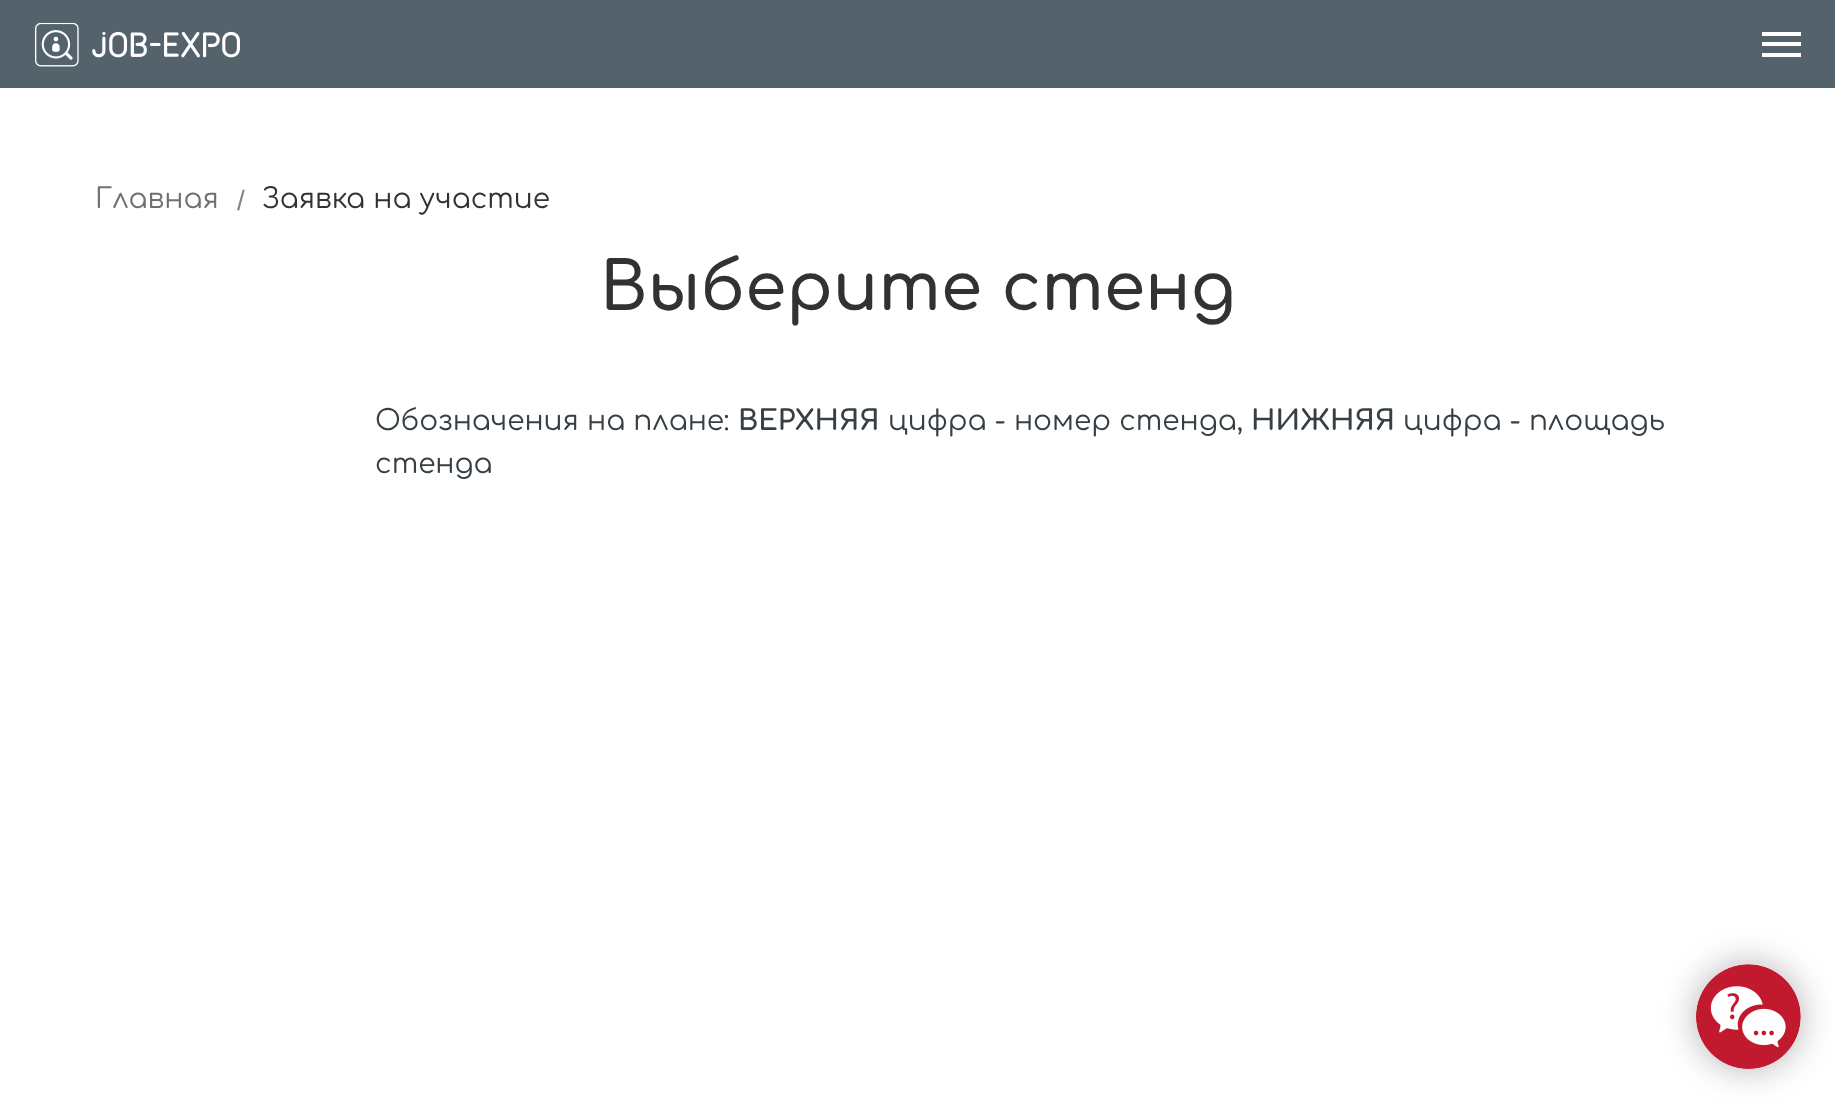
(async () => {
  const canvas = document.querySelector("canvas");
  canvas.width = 1835;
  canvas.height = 1104;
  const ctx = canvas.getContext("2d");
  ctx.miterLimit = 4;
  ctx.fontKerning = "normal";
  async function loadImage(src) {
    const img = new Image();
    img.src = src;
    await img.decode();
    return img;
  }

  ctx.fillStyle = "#ffffff";
  ctx.fillRect(0, 0, 1835, 1104);
  ctx.fillStyle = "#54626b";
  ctx.fillRect(0, 0, 1835, 88);
  ctx.drawImage(await loadImage("img/1.png"), 35, 23, 205, 44);
  for (const [x, y, w, h, color] of [
    [1762, 32, 39, 4, "#ffffff"],
    [1762, 42, 39, 4, "#ffffff"],
    [1762, 53, 39, 4, "#ffffff"],
  ]) {
    ctx.fillStyle = color;
    ctx.fillRect(x, y, w, h);
  }
  ctx.fillStyle = "rgba(0, 0, 0, 0.3)";
  ctx.filter = "blur(17.5px)";
  ctx.beginPath();
  ctx.roundRect(1696, 964, 105, 105, 52.5);
  ctx.fill();
  ctx.filter = "none";
  ctx.fillStyle = "#ffffff";
  ctx.beginPath();
  ctx.arc(1748.5, 1016.5, 52.5, 0, Math.PI * 2);
  ctx.fill();
  ctx.drawImage(await loadImage("img/2.png"), 1696, 964, 105, 105);
  ctx.font = "28px Comfortaa";
  ctx.fillStyle = "#707070";
  ctx.fillText("Главная", 95, 208);
  ctx.font = "28px Liberation Sans";
  ctx.fillStyle = "#858585";
  ctx.fillText("/", 237, 210);
  ctx.font = "28px Comfortaa";
  ctx.fillStyle = "#323232";
  ctx.fillText("Заявка на участие", 262, 208);
  ctx.font = "600 66.5px Comfortaa";
  ctx.fillText("Выберите стенд", 600, 310);
  ctx.font = "28px Comfortaa";
  ctx.fillStyle = "#363f44";
  ctx.fillText("Обозначения на плане:", 375, 430);
  ctx.font = "bold 28px Comfortaa";
  ctx.fillText("ВЕРХНЯЯ", 738, 430);
  ctx.font = "28px Comfortaa";
  ctx.fillText("цифра - номер стенда,", 888, 430);
  ctx.font = "bold 28px Comfortaa";
  ctx.fillText("НИЖНЯЯ", 1251, 430);
  ctx.font = "28px Comfortaa";
  ctx.fillText("цифра - площадь", 1403, 430);
  ctx.fillText("стенда", 375, 473);
})();
